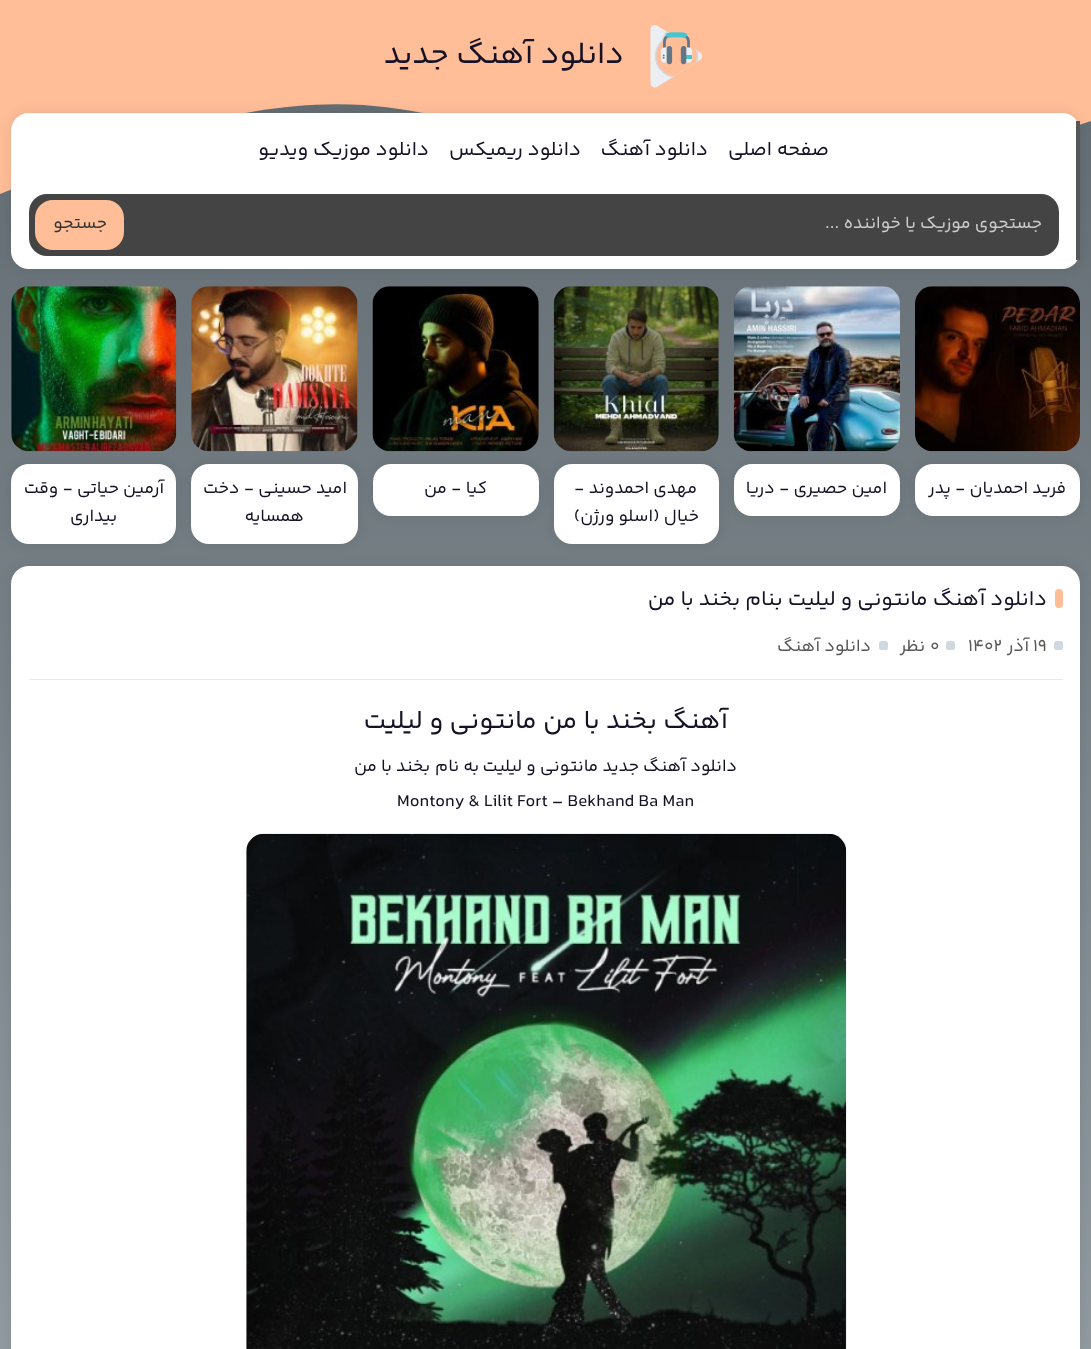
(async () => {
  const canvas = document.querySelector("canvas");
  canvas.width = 1091;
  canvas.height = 1349;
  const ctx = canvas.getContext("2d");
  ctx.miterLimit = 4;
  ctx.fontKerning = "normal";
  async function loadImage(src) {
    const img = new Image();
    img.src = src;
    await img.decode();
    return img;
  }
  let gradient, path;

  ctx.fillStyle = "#ffffff";
  ctx.fillRect(0, 0, 1091, 1349);
  gradient = ctx.createLinearGradient(546, 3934, 546, 0);
  gradient.addColorStop(0, "#f3f9fd");
  gradient.addColorStop(1, "#5f696f");
  ctx.fillStyle = gradient;
  ctx.fillRect(0, 104, 1091, 1245);
  ctx.fillStyle = "#ffbe98";
  path = new Path2D("M0 194L61 170C121 146 242 97 364 105C485 113 606 178 728 190C849 202 970 161 1031 141L1091 121V0H0Z");
  ctx.fill(path);
  ctx.drawImage(await loadImage("img/1.png"), 650, 25, 52, 63);
  ctx.fillStyle = "rgba(22, 17, 37, 0.1)";
  ctx.filter = "blur(6px)";
  ctx.beginPath();
  ctx.roundRect(11, 113, 1069, 156, 18);
  ctx.fill();
  ctx.filter = "none";
  ctx.fillStyle = "#ffffff";
  ctx.beginPath();
  ctx.roundRect(11, 113, 1069, 156, 18);
  ctx.fill();
  ctx.fillStyle = "#575757";
  ctx.fillRect(1076, 121, 4, 139);
  ctx.fillStyle = "#444444";
  ctx.beginPath();
  ctx.roundRect(29, 194, 1030, 62, 18);
  ctx.fill();
  ctx.fillStyle = "#ffbe98";
  ctx.beginPath();
  ctx.roundRect(35, 200, 89, 50, 18);
  ctx.fill();
  ctx.drawImage(await loadImage("img/2.png"), 915, 286, 165, 166);
  ctx.fillStyle = "rgba(22, 17, 37, 0.1)";
  ctx.filter = "blur(6px)";
  ctx.beginPath();
  ctx.roundRect(915, 464, 165, 52, 18);
  ctx.fill();
  ctx.filter = "none";
  ctx.fillStyle = "#ffffff";
  ctx.beginPath();
  ctx.roundRect(915, 464, 165, 52, 18);
  ctx.fill();
  ctx.drawImage(await loadImage("img/3.png"), 733, 286, 167, 166);
  ctx.fillStyle = "rgba(22, 17, 37, 0.1)";
  ctx.filter = "blur(6px)";
  ctx.beginPath();
  ctx.roundRect(734, 464, 166, 52, 18);
  ctx.fill();
  ctx.filter = "none";
  ctx.fillStyle = "#ffffff";
  ctx.beginPath();
  ctx.roundRect(734, 464, 166, 52, 18);
  ctx.fill();
  ctx.drawImage(await loadImage("img/4.png"), 553, 286, 166, 166);
  ctx.fillStyle = "rgba(22, 17, 37, 0.1)";
  ctx.filter = "blur(6px)";
  ctx.beginPath();
  ctx.roundRect(554, 464, 165, 80, 18);
  ctx.fill();
  ctx.filter = "none";
  ctx.fillStyle = "#ffffff";
  ctx.beginPath();
  ctx.roundRect(554, 464, 165, 80, 18);
  ctx.fill();
  ctx.drawImage(await loadImage("img/5.png"), 372, 286, 167, 166);
  ctx.fillStyle = "rgba(22, 17, 37, 0.1)";
  ctx.filter = "blur(6px)";
  ctx.beginPath();
  ctx.roundRect(373, 464, 166, 52, 18);
  ctx.fill();
  ctx.filter = "none";
  ctx.fillStyle = "#ffffff";
  ctx.beginPath();
  ctx.roundRect(373, 464, 166, 52, 18);
  ctx.fill();
  ctx.drawImage(await loadImage("img/6.png"), 191, 286, 167, 166);
  ctx.fillStyle = "rgba(22, 17, 37, 0.1)";
  ctx.filter = "blur(6px)";
  ctx.beginPath();
  ctx.roundRect(191, 464, 167, 80, 18);
  ctx.fill();
  ctx.filter = "none";
  ctx.fillStyle = "#ffffff";
  ctx.beginPath();
  ctx.roundRect(191, 464, 167, 80, 18);
  ctx.fill();
  ctx.drawImage(await loadImage("img/7.png"), 11, 286, 166, 166);
  ctx.fillStyle = "rgba(22, 17, 37, 0.1)";
  ctx.filter = "blur(6px)";
  ctx.beginPath();
  ctx.roundRect(11, 464, 165, 80, 18);
  ctx.fill();
  ctx.filter = "none";
  ctx.fillStyle = "#ffffff";
  ctx.beginPath();
  ctx.roundRect(11, 464, 165, 80, 18);
  ctx.fill();
  ctx.fillStyle = "rgba(22, 17, 37, 0.1)";
  ctx.filter = "blur(6px)";
  ctx.beginPath();
  ctx.roundRect(11, 566, 1069, 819, 18);
  ctx.fill();
  ctx.filter = "none";
  ctx.fillStyle = "#ffffff";
  ctx.beginPath();
  ctx.roundRect(11, 566, 1069, 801, 18);
  ctx.fill();
  ctx.fillStyle = "#e2ebf0";
  ctx.fillRect(29, 679, 1034, 1);
  ctx.fillStyle = "#ffbe98";
  ctx.beginPath();
  ctx.roundRect(1055, 589, 8, 19, 4);
  ctx.fill();
  ctx.fillStyle = "#cfd9df";
  ctx.beginPath();
  ctx.roundRect(1054, 641, 9, 9, 2.5);
  ctx.fill();
  ctx.beginPath();
  ctx.roundRect(946, 641, 9, 9, 2.5);
  ctx.fill();
  ctx.beginPath();
  ctx.roundRect(879, 641, 9, 9, 2.5);
  ctx.fill();
  ctx.drawImage(await loadImage("img/8.png"), 246, 833, 601, 516);
  ctx.direction = "rtl";
  ctx.font = "31.25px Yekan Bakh";
  ctx.fillStyle = "#161125";
  ctx.fillText("دانلود آهنگ جدید", 624, 63);
  ctx.font = "20px Yekan Bakh";
  for (const [text, x, y] of [
    ["صفحه اصلی", 829, 155],
    ["دانلود آهنگ", 708, 155],
    ["دانلود ریمیکس", 581, 155],
    ["دانلود موزیک ویدیو", 429, 155],
  ]) {
    ctx.fillText(text, x, y);
  }
  ctx.font = "17.5px Yekan Bakh";
  ctx.fillStyle = "#cccccc";
  ctx.fillText("جستجوی موزیک یا خواننده ...", 1042, 228);
  ctx.fillStyle = "#333333";
  ctx.fillText("جستجو", 107, 228);
  ctx.fillStyle = "#161125";
  for (const [text, x, y] of [
    ["فرید احمدیان - پدر", 1066, 493],
    ["امین حصیری - دریا", 887, 493],
    ["مهدی احمدوند -", 697, 493],
    ["خیال (اسلو ورژن)", 699, 521],
    ["کیا - من", 487, 493],
    ["امید حسینی - دخت", 347, 493],
    ["همسایه", 304, 521],
    ["آرمین حیاتی - وقت", 164, 493],
    ["بیداری", 117, 521],
  ]) {
    ctx.fillText(text, x, y);
  }
  ctx.font = "21.25px Yekan Bakh";
  ctx.fillText("دانلود آهنگ مانتونی و لیلیت بنام بخند با من", 1047, 605);
  ctx.direction = "ltr";
  ctx.font = "17.5px Yekan Bakh";
  ctx.fillStyle = "#575757";
  ctx.fillText("۱۹", 1033, 651);
  ctx.direction = "rtl";
  ctx.fillText("آذر", 1029, 651);
  ctx.direction = "ltr";
  ctx.fillText("۱۴۰۲", 968, 651);
  ctx.fillText("۰", 930, 651);
  ctx.direction = "rtl";
  ctx.fillText("نظر", 925, 651);
  ctx.fillText("دانلود آهنگ", 871, 651);
  ctx.font = "26.25px Yekan Bakh";
  ctx.fillStyle = "#161125";
  ctx.fillText("آهنگ بخند با من مانتونی و لیلیت", 728, 728);
  ctx.font = "17.5px Yekan Bakh";
  for (const [text, x, y] of [
    ["دانلود آهنگ جدید", 737, 771],
    ["مانتونی و لیلیت", 598, 771],
    ["به نام", 479, 771],
    ["بخند با من", 430, 771],
  ]) {
    ctx.fillText(text, x, y);
  }
  ctx.direction = "ltr";
  ctx.fillText("Montony & Lilit Fort – Bekhand Ba Man", 397, 806);
})();
